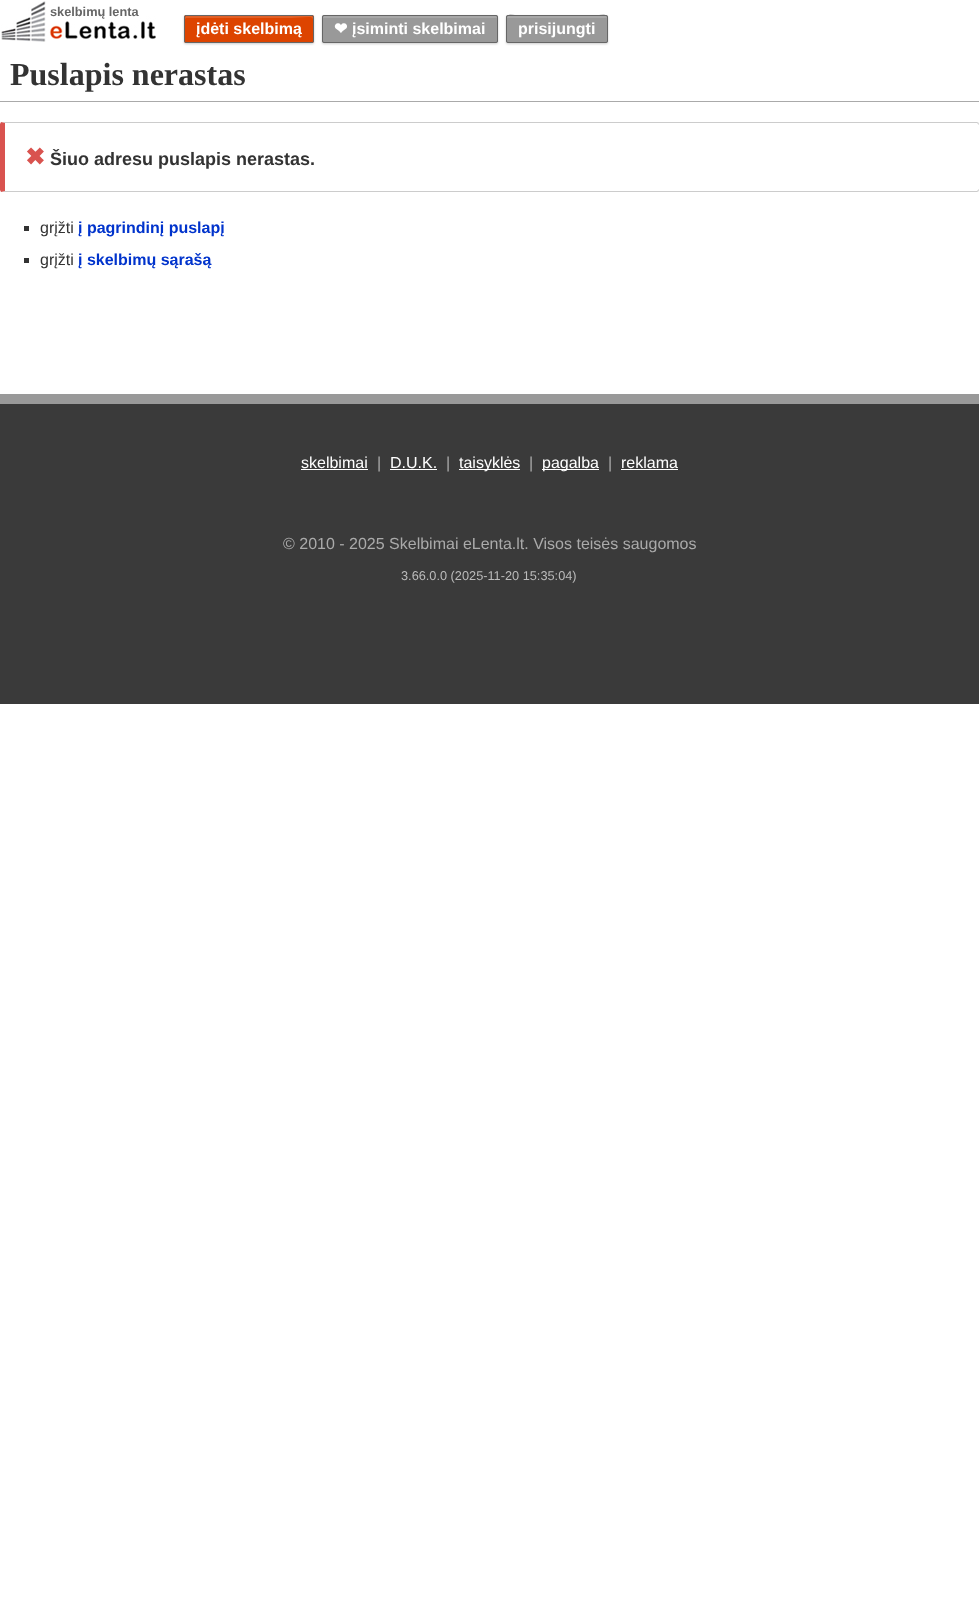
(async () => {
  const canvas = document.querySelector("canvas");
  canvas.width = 979;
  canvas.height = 1624;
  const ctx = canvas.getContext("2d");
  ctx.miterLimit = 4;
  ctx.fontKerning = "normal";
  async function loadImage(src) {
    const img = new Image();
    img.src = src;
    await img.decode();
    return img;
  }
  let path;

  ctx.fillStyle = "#ffffff";
  ctx.fillRect(0, 0, 979, 1624);
  ctx.drawImage(await loadImage("img/1.png"), 1, 1, 155, 41);
  ctx.fillStyle = "rgba(0, 0, 0, 0.2)";
  ctx.filter = "blur(1px)";
  ctx.beginPath();
  ctx.roundRect(184, 16, 130, 28, 2);
  ctx.fill();
  ctx.filter = "none";
  ctx.fillStyle = "#dd4400";
  ctx.beginPath();
  ctx.roundRect(184, 15, 130, 28, 2);
  ctx.fill();
  ctx.fillStyle = "#e26026";
  path = new Path2D("M186 18H291L309 17C310 17 312 17 313 19C313 18 313 16 312 16H186C185 17 185 18 185 19Z");
  ctx.fill(path);
  ctx.beginPath();
  ctx.roundRect(184.5, 15.5, 129, 27, 1.5);
  ctx.strokeStyle = "#666666";
  ctx.stroke();
  ctx.fillStyle = "rgba(0, 0, 0, 0.2)";
  ctx.filter = "blur(1px)";
  ctx.beginPath();
  ctx.roundRect(322, 16, 176, 28, 2);
  ctx.fill();
  ctx.filter = "none";
  ctx.fillStyle = "#999999";
  ctx.beginPath();
  ctx.roundRect(322, 15, 176, 28, 2);
  ctx.fill();
  ctx.fillStyle = "#a8a8a8";
  path = new Path2D("M324 18H496C497 18 497 18 497 19C497 18 497 16 496 16H324C323 16 323 18 323 19C323 18 323 18 324 18Z");
  ctx.fill(path);
  ctx.beginPath();
  ctx.roundRect(322.5, 15.5, 175, 27, 1.5);
  ctx.stroke();
  ctx.fillStyle = "rgba(0, 0, 0, 0.2)";
  ctx.filter = "blur(1px)";
  ctx.beginPath();
  ctx.roundRect(506, 16, 102, 28, 2);
  ctx.fill();
  ctx.filter = "none";
  ctx.fillStyle = "#999999";
  ctx.beginPath();
  ctx.roundRect(506, 15, 102, 28, 2);
  ctx.fill();
  ctx.fillStyle = "#a8a8a8";
  path = new Path2D("M508 18H606C607 18 607 18 607 19C607 11 600 16 590 16H524C514 16 507 11 507 19C507 18 507 18 508 18Z");
  ctx.fill(path);
  ctx.beginPath();
  ctx.roundRect(506.5, 15.5, 101, 27, 1.5);
  ctx.stroke();
  ctx.fillStyle = "#aaaaaa";
  ctx.fillRect(0, 101, 979, 1);
  ctx.fillStyle = "#cccccc";
  path = new Path2D("M3 122H1L5 123H977L978 124L979 123L977 122Z");
  ctx.fill(path);
  path = new Path2D("M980 189C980 182 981 124 979 123L978 124L979 125V189L978 190L979 191Z");
  ctx.fill(path);
  path = new Path2D("M3 192H977L979 191L978 190L977 191H5L1 192Z");
  ctx.fill(path);
  ctx.fillStyle = "#d9534f";
  path = new Path2D("M5 123L1 122L0 124V190L1 192L5 191Z");
  ctx.fill(path);
  for (const [x, y, w, h, color] of [
    [24, 226, 5, 5, "#333333"],
    [24, 258, 5, 5, "#333333"],
    [0, 404, 979, 300, "#3a3a3a"],
    [0, 394, 979, 10, "#999999"],
    [301, 469, 67, 1, "#ffffff"],
    [390, 469, 47, 1, "#ffffff"],
    [459, 469, 61, 1, "#ffffff"],
    [542, 469, 57, 1, "#ffffff"],
    [621, 469, 57, 1, "#ffffff"],
  ]) {
    ctx.fillStyle = color;
    ctx.fillRect(x, y, w, h);
  }
  ctx.font = "bold 12.75px Liberation Sans";
  ctx.fillStyle = "#666666";
  ctx.fillText("skelbimų lenta", 50, 16);
  ctx.font = "bold 16px Liberation Sans";
  ctx.fillStyle = "#ffffff";
  ctx.fillText("įdėti skelbimą", 196, 34);
  ctx.font = "bold 16px DejaVu Sans";
  ctx.fillText("❤︎", 334, 34);
  ctx.font = "bold 16px Liberation Sans";
  ctx.fillText("įsiminti skelbimai", 352, 34);
  ctx.fillText("prisijungti", 518, 34);
  ctx.font = "bold 32px Liberation Serif";
  ctx.fillStyle = "#333333";
  ctx.fillText("Puslapis nerastas", 10, 85);
  ctx.font = "bold 24px DejaVu Sans";
  ctx.fillStyle = "#d9534f";
  ctx.fillText("✖", 25, 165);
  ctx.font = "bold 18px Liberation Sans";
  ctx.fillStyle = "#333333";
  ctx.fillText("Šiuo adresu puslapis nerastas.", 50, 165);
  ctx.font = "16px Liberation Sans";
  ctx.fillText("grįžti", 40, 233);
  ctx.font = "bold 16px Liberation Sans";
  ctx.fillStyle = "#0033cc";
  ctx.fillText("į pagrindinį puslapį", 78, 233);
  ctx.font = "16px Liberation Sans";
  ctx.fillStyle = "#333333";
  ctx.fillText("grįžti", 40, 265);
  ctx.font = "bold 16px Liberation Sans";
  ctx.fillStyle = "#0033cc";
  ctx.fillText("į skelbimų sąrašą", 78, 265);
  ctx.font = "16px Liberation Sans";
  ctx.fillStyle = "#ffffff";
  ctx.fillText("skelbimai", 301, 468);
  ctx.fillStyle = "#aaaaaa";
  ctx.fillText("|", 377, 468);
  ctx.fillStyle = "#ffffff";
  ctx.fillText("D.U.K.", 390, 468);
  ctx.fillStyle = "#aaaaaa";
  ctx.fillText("|", 446, 468);
  ctx.fillStyle = "#ffffff";
  ctx.fillText("taisyklės", 459, 468);
  ctx.fillStyle = "#aaaaaa";
  ctx.fillText("|", 529, 468);
  ctx.fillStyle = "#ffffff";
  ctx.fillText("pagalba", 542, 468);
  ctx.fillStyle = "#aaaaaa";
  ctx.fillText("|", 608, 468);
  ctx.fillStyle = "#ffffff";
  ctx.fillText("reklama", 621, 468);
  ctx.fillStyle = "#aaaaaa";
  ctx.fillText("© 2010 - 2025 Skelbimai eLenta.lt. Visos teisės saugomos", 283, 549);
  ctx.font = "12.75px Liberation Sans";
  ctx.fillStyle = "#bbbbbb";
  ctx.fillText("3.66.0.0 (2025-11-20 15:35:04)", 401, 580);
})();
